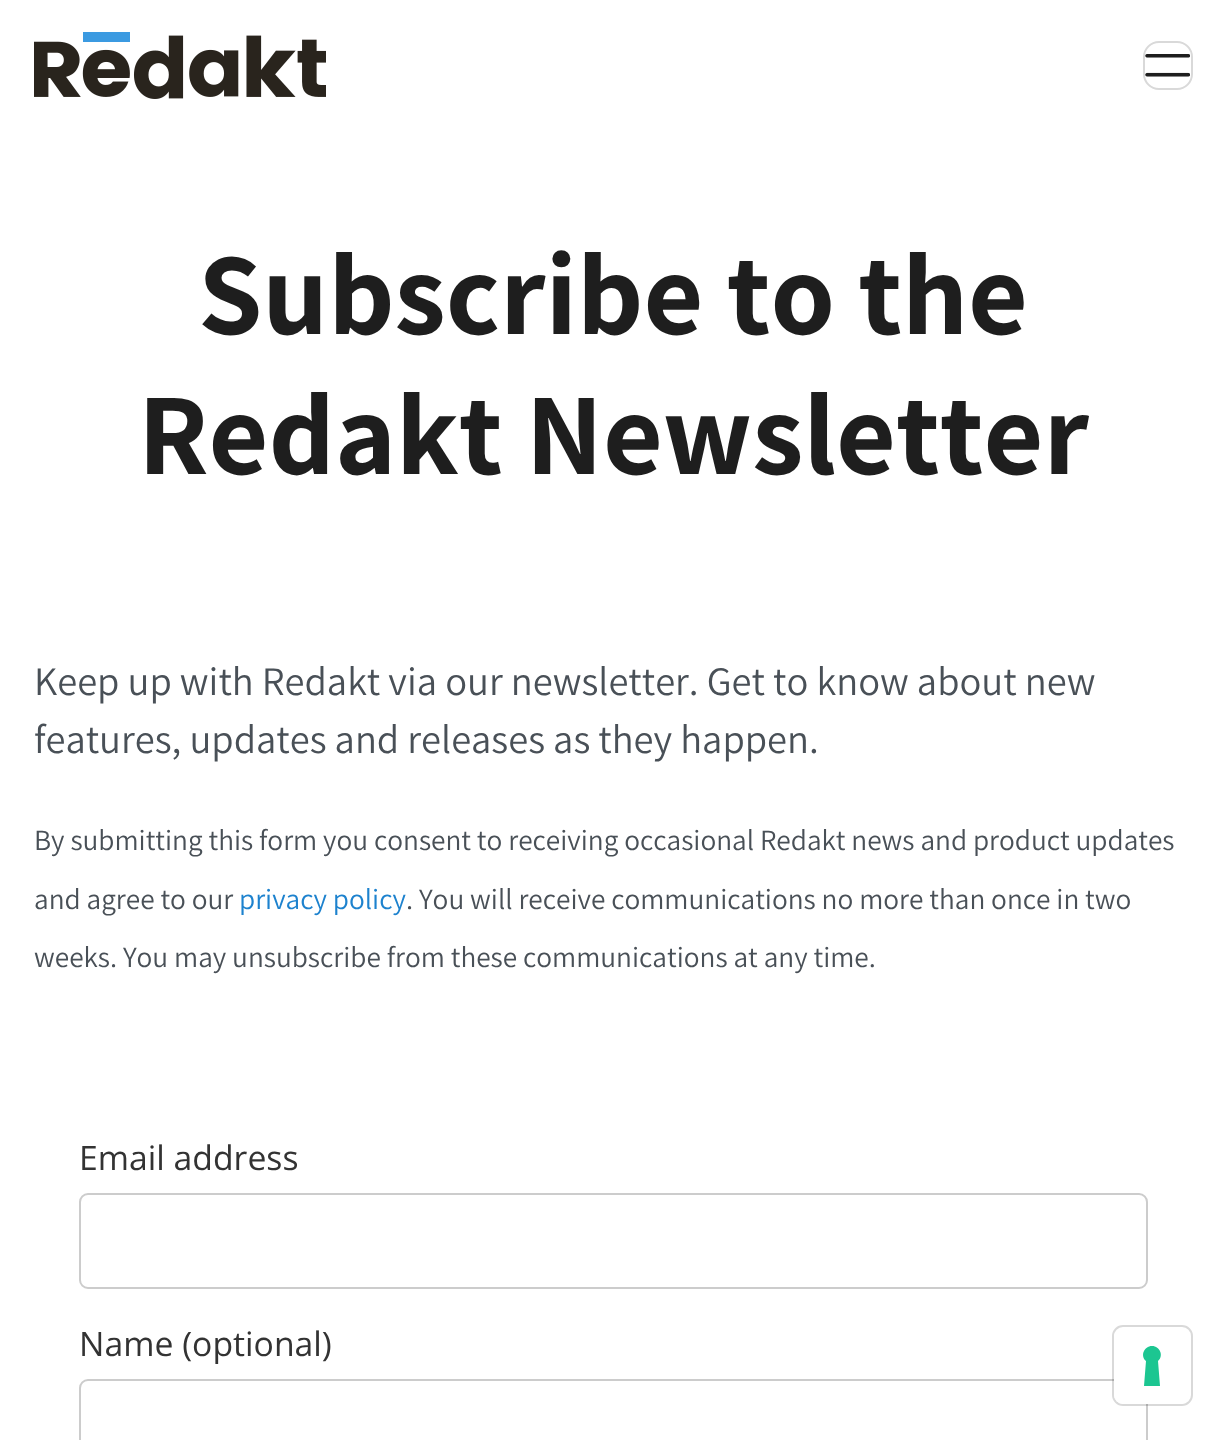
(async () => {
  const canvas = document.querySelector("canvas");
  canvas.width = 1225;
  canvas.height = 1440;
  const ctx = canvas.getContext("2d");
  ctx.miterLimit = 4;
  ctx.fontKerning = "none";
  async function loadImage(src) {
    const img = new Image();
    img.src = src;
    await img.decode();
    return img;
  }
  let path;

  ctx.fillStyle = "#ffffff";
  ctx.fillRect(0, 0, 1225, 1440);
  ctx.drawImage(await loadImage("img/1.png"), 34, 32, 292, 67);
  ctx.beginPath();
  ctx.roundRect(1144, 42, 48, 47, 15);
  ctx.strokeStyle = "#d9d9d9";
  ctx.lineWidth = 2;
  ctx.stroke();
  ctx.drawImage(await loadImage("img/2.png"), 1145, 54, 45, 23);
  ctx.beginPath();
  ctx.roundRect(80, 1194, 1067, 94, 8);
  ctx.strokeStyle = "#cccccc";
  ctx.stroke();
  ctx.beginPath();
  ctx.roundRect(80, 1380, 1067, 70, 8);
  ctx.stroke();
  ctx.beginPath();
  ctx.roundRect(1113, 1326, 79, 79, 10);
  ctx.strokeStyle = "rgba(0, 0, 0, 0.15)";
  ctx.stroke();
  ctx.beginPath();
  ctx.roundRect(1114, 1328, 76, 76, 9);
  ctx.fill();
  ctx.fillStyle = "#1cc691";
  path = new Path2D("M1152 1346C1160 1346 1164 1356 1158 1361L1160 1386H1144L1146 1361C1140 1356 1144 1346 1152 1346Z");
  ctx.fill(path, "evenodd");
  ctx.font = "bold 116.5px Assistant";
  ctx.fillStyle = "#1e1e1e";
  ctx.fillText("Subscribe to the", 198, 334);
  ctx.fillText("Redakt Newsletter", 138, 474);
  ctx.font = "40.5px Assistant";
  ctx.fillStyle = "#495057";
  ctx.fillText("Keep up with Redakt via our newsletter. Get to know about new", 34, 695);
  ctx.fillText("features, updates and releases as they happen.", 34, 753);
  ctx.font = "29.25px Assistant";
  ctx.fillText("By submitting this form you consent to receiving occasional Redakt news and product updates", 34, 850);
  ctx.fillText("and agree to our", 34, 909);
  ctx.fillStyle = "#1d82ce";
  ctx.fillText("privacy policy", 239, 909);
  ctx.fillStyle = "#495057";
  ctx.fillText(". You will receive communications no more than once in two", 406, 909);
  ctx.fillText("weeks. You may unsubscribe from these communications at any time.", 34, 967);
  ctx.font = "33.75px Open Sans";
  ctx.fillStyle = "#333333";
  ctx.fillText("Email address", 79, 1170);
  ctx.fillText("Name (optional)", 79, 1356);
})();
